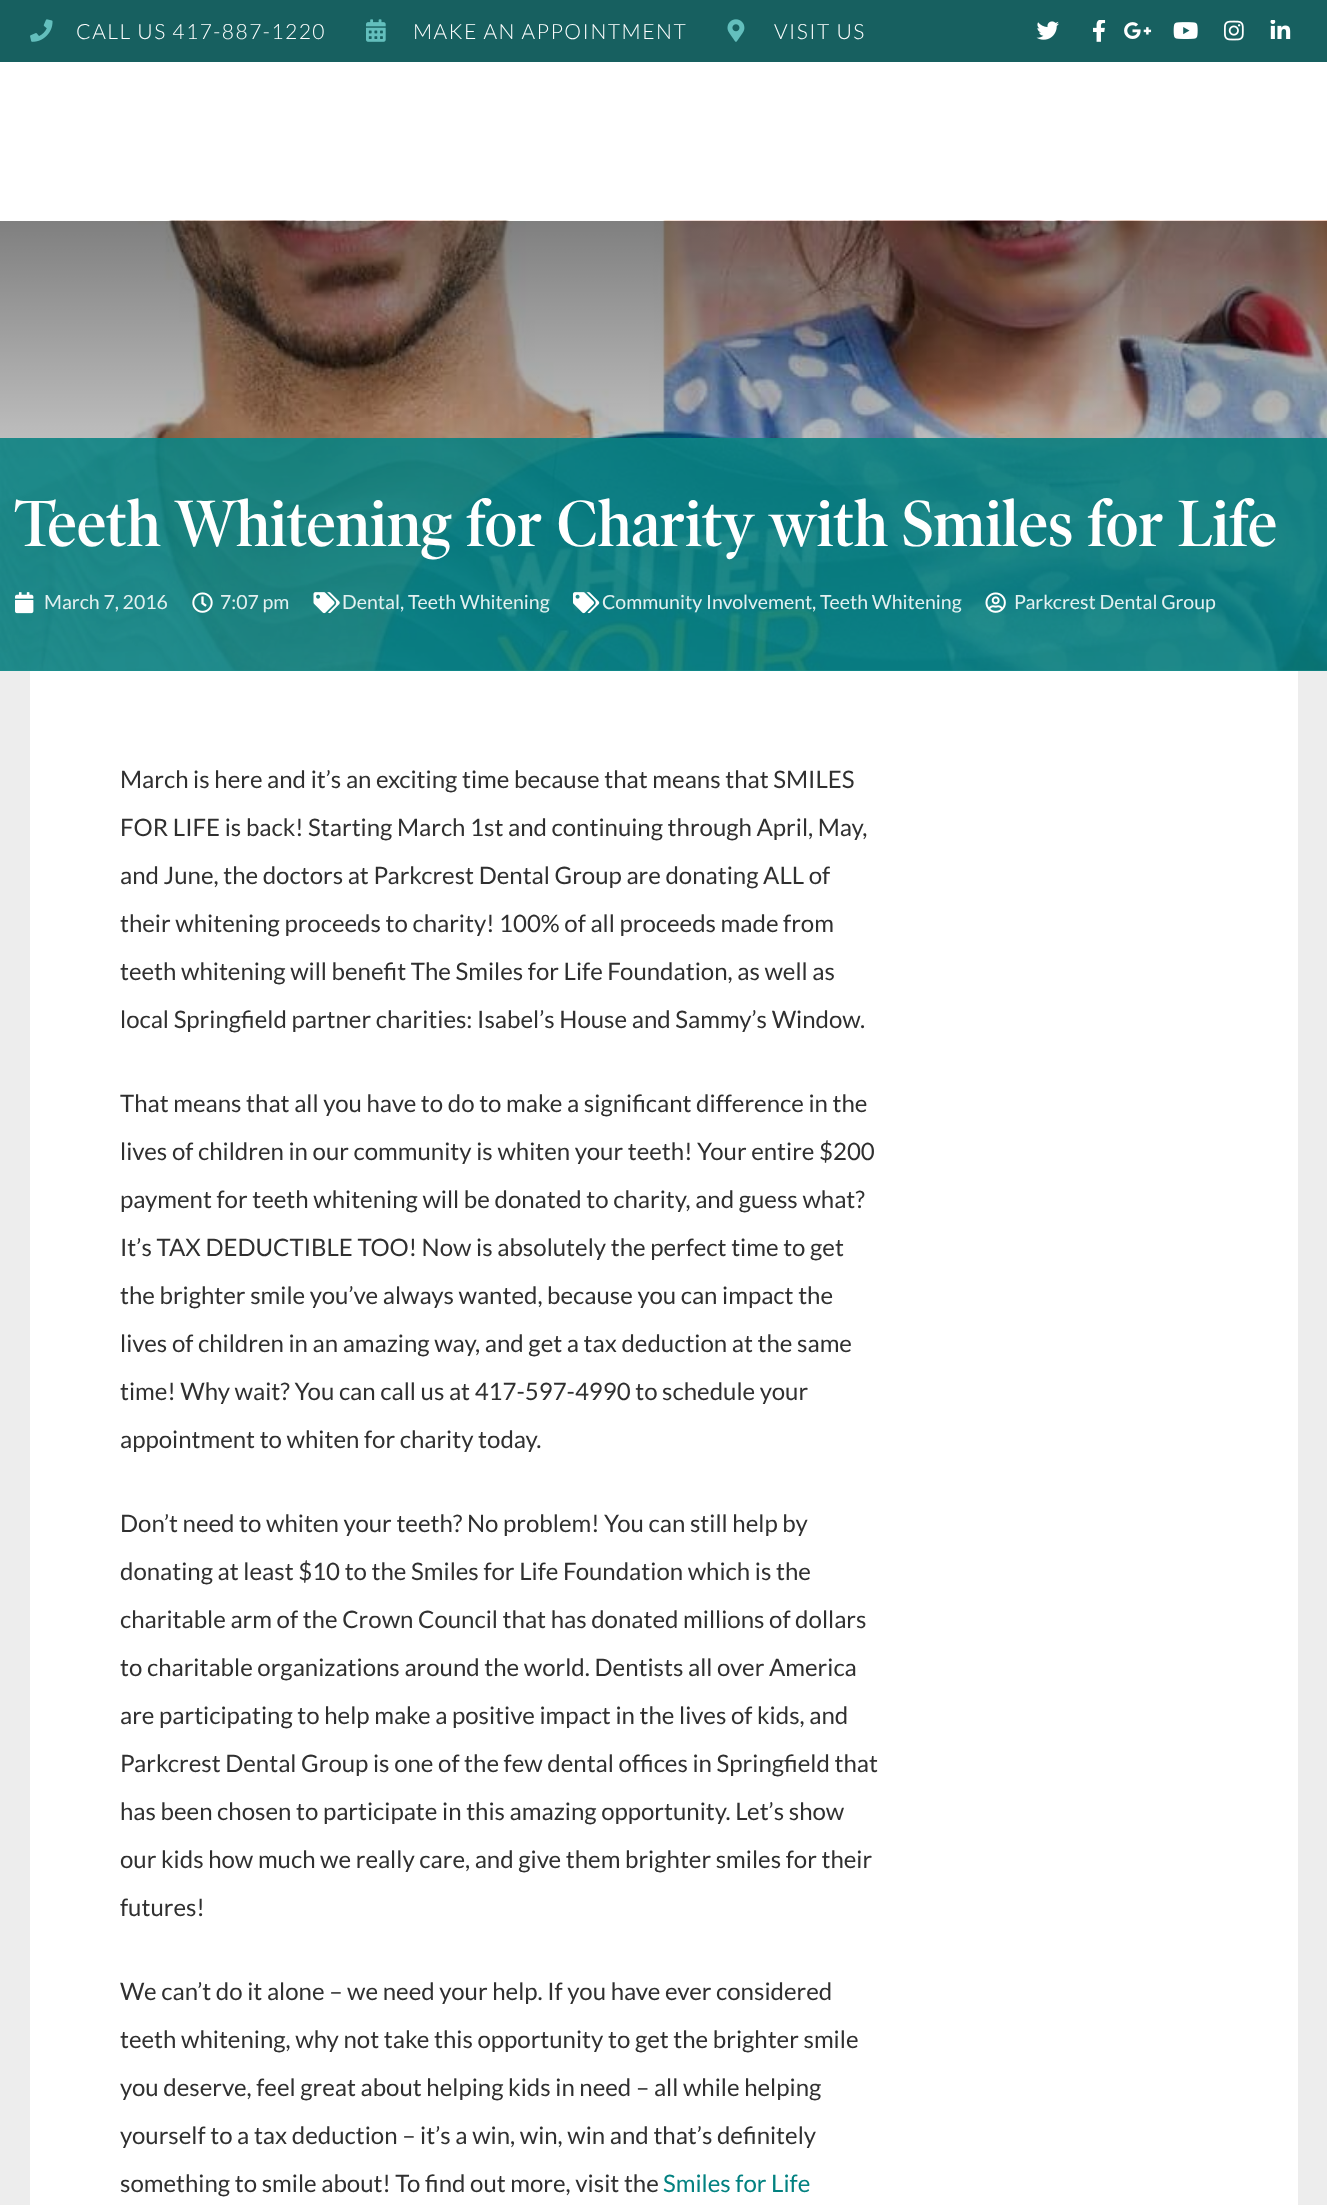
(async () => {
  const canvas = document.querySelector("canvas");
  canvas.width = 1327;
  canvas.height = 2205;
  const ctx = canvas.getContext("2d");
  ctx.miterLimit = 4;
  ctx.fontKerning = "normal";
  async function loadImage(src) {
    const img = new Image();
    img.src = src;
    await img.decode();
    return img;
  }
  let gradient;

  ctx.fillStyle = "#ffffff";
  ctx.fillRect(0, 0, 1327, 2205);
  ctx.fillStyle = "#176060";
  ctx.fillRect(0, 0, 1327, 62);
  ctx.drawImage(await loadImage("img/1.png"), 30, 19, 23, 23);
  ctx.drawImage(await loadImage("img/2.png"), 366, 19, 20, 23);
  ctx.drawImage(await loadImage("img/3.png"), 727, 19, 18, 23);
  ctx.drawImage(await loadImage("img/4.png"), 1036, 21, 23, 19);
  ctx.drawImage(await loadImage("img/5.png"), 1093, 20, 13, 22);
  ctx.drawImage(await loadImage("img/6.png"), 1124, 22, 28, 17);
  ctx.drawImage(await loadImage("img/7.png"), 1173, 22, 25, 17);
  ctx.drawImage(await loadImage("img/8.png"), 1224, 20, 20, 21);
  ctx.drawImage(await loadImage("img/9.png"), 1270, 20, 21, 19);
  ctx.drawImage(await loadImage("img/10.png"), 0, 220, 1327, 451);
  gradient = ctx.createLinearGradient(664, 220, 664, 671);
  gradient.addColorStop(0, "rgba(0, 0, 0, 0.5)");
  gradient.addColorStop(1, "rgba(0, 0, 0, 0)");
  ctx.fillStyle = gradient;
  ctx.fillRect(0, 221, 1327, 431);
  ctx.fillStyle = "rgba(2, 129, 128, 0.89)";
  ctx.fillRect(0, 438, 1327, 233);
  ctx.drawImage(await loadImage("img/11.png"), 0, 438, 1327, 232);
  ctx.drawImage(await loadImage("img/12.png"), 15, 592, 19, 22);
  ctx.drawImage(await loadImage("img/13.png"), 192, 592, 21, 21);
  ctx.drawImage(await loadImage("img/14.png"), 313, 592, 27, 22);
  ctx.drawImage(await loadImage("img/15.png"), 573, 592, 27, 22);
  ctx.drawImage(await loadImage("img/16.png"), 985, 592, 21, 21);
  ctx.fillStyle = "#ededed";
  ctx.fillRect(0, 671, 1327, 1534);
  ctx.fillStyle = "#ffffff";
  ctx.fillRect(30, 671, 1268, 1534);
  ctx.letterSpacing = "1.5px";
  ctx.font = "300 21px Lato";
  for (const [text, x, y] of [
    ["CALL US 417-887-1220", 76, 39],
    ["MAKE AN APPOINTMENT", 413, 39],
    ["VISIT US", 774, 39],
  ]) {
    ctx.fillText(text, x, y);
  }
  ctx.letterSpacing = "0px";
  ctx.font = "600 66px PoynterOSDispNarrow";
  ctx.fillText("Teeth Whitening for Charity with Smiles for Life", 15, 546);
  ctx.font = "19.5px Lato";
  ctx.fillStyle = "#e2f0f0";
  for (const [text, x, y] of [
    ["March 7, 2016", 44, 609],
    ["7:07 pm", 220, 609],
    ["Dental", 342, 609],
    [",", 400, 609],
    ["Teeth Whitening", 408, 609],
    ["Community Involvement", 602, 609],
    [",", 812, 609],
    ["Teeth Whitening", 820, 609],
    ["Parkcrest Dental Group", 1014, 609],
  ]) {
    ctx.fillText(text, x, y);
  }
  ctx.font = "24px Lato";
  ctx.fillStyle = "#303030";
  for (const [text, x, y] of [
    ["March is here and it’s an exciting time because that means that SMILES", 120, 788],
    ["FOR LIFE is back! Starting March 1st and continuing through April, May,", 120, 836],
    ["and June, the doctors at Parkcrest Dental Group are donating ALL of", 120, 884],
    ["their whitening proceeds to charity! 100% of all proceeds made from", 120, 932],
    ["teeth whitening will benefit The Smiles for Life Foundation, as well as", 120, 980],
    ["local Springfield partner charities: Isabel’s House and Sammy’s Window.", 120, 1028],
    ["That means that all you have to do to make a significant difference in the", 120, 1112],
    ["lives of children in our community is whiten your teeth! Your entire $200", 120, 1160],
    ["payment for teeth whitening will be donated to charity, and guess what?", 120, 1208],
    ["It’s TAX DEDUCTIBLE TOO! Now is absolutely the perfect time to get", 120, 1256],
    ["the brighter smile you’ve always wanted, because you can impact the", 120, 1304],
    ["lives of children in an amazing way, and get a tax deduction at the same", 120, 1352],
    ["time! Why wait? You can call us at 417-597-4990 to schedule your", 120, 1400],
    ["appointment to whiten for charity today.", 120, 1448],
    ["Don’t need to whiten your teeth? No problem! You can still help by", 120, 1532],
    ["donating at least $10 to the Smiles for Life Foundation which is the", 120, 1580],
    ["charitable arm of the Crown Council that has donated millions of dollars", 120, 1628],
    ["to charitable organizations around the world. Dentists all over America", 120, 1676],
    ["are participating to help make a positive impact in the lives of kids, and", 120, 1724],
    ["Parkcrest Dental Group is one of the few dental offices in Springfield that", 120, 1772],
    ["has been chosen to participate in this amazing opportunity. Let’s show", 120, 1820],
    ["our kids how much we really care, and give them brighter smiles for their", 120, 1868],
    ["futures!", 120, 1916],
    ["We can’t do it alone – we need your help. If you have ever considered", 120, 2000],
    ["teeth whitening, why not take this opportunity to get the brighter smile", 120, 2048],
    ["you deserve, feel great about helping kids in need – all while helping", 120, 2096],
    ["yourself to a tax deduction – it’s a win, win, win and that’s definitely", 120, 2144],
    ["something to smile about! To find out more, visit the", 120, 2192],
  ]) {
    ctx.fillText(text, x, y);
  }
  ctx.fillStyle = "#028180";
  ctx.fillText("Smiles for Life", 663, 2192);
})();
